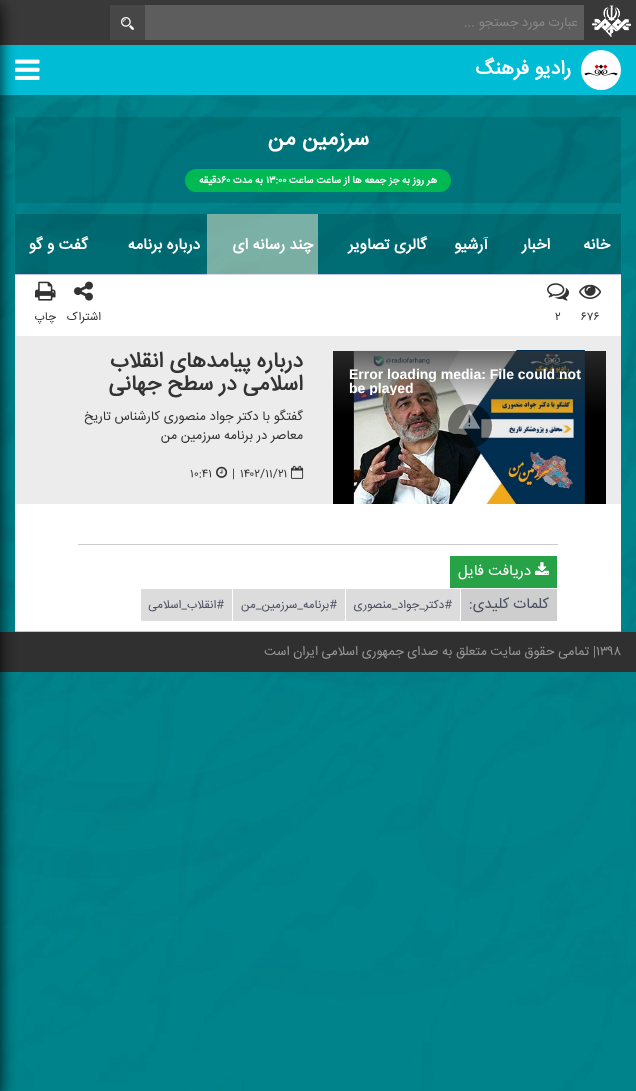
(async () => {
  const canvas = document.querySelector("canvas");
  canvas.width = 636;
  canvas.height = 1091;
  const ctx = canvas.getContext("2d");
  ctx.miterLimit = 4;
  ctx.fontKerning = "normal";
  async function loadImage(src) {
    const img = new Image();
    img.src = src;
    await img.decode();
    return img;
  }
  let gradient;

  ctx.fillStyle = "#ffffff";
  ctx.fillRect(0, 0, 636, 1091);
  ctx.fillStyle = "#393939";
  ctx.fillRect(0, 0, 636, 45);
  ctx.fillStyle = "#00bcd4";
  ctx.fillRect(0, 45, 636, 50);
  ctx.drawImage(await loadImage("img/4.png"), 15, 59, 25, 21);
  ctx.drawImage(await loadImage("img/5.png"), 0, 95, 636, 996);
  for (const [x, y, w, h, color] of [
    [15, 117, 606, 86, "rgba(0, 0, 0, 0.11)"],
    [15, 214, 606, 60, "rgba(0, 0, 0, 0.17)"],
    [15, 275, 606, 356, "#ffffff"],
    [15, 274, 606, 1, "#bbbff2"],
    [15, 631, 606, 1, "#bbbff2"],
    [15, 336, 606, 168, "#ececec"],
    [0, 632, 636, 40, "#303030"],
  ]) {
    ctx.fillStyle = color;
    ctx.fillRect(x, y, w, h);
  }
  ctx.fillStyle = "rgba(0, 0, 0, 0.5)";
  ctx.filter = "blur(7.5px)";
  ctx.beginPath();
  ctx.rect(-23, 5, 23, 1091);
  ctx.fill();
  ctx.filter = "none";
  ctx.drawImage(await loadImage("img/1.png"), 592, 5, 39, 32);
  ctx.fillStyle = "#5d5d5d";
  ctx.fillRect(145, 5, 439, 35);
  ctx.fillStyle = "#474747";
  ctx.fillRect(110, 5, 35, 35);
  ctx.drawImage(await loadImage("img/2.png"), 121, 17, 13, 13);
  ctx.fillStyle = "#fefdff";
  ctx.beginPath();
  ctx.arc(601, 70, 20, 0, Math.PI * 2);
  ctx.fill();
  ctx.drawImage(await loadImage("img/3.png"), 584, 64, 34, 12);
  ctx.fillStyle = "#00b953";
  ctx.beginPath();
  ctx.roundRect(185, 169, 266, 23, 11.5);
  ctx.fill();
  ctx.fillStyle = "rgba(255, 251, 220, 0.48)";
  ctx.fillRect(207, 214, 111, 61);
  ctx.fillStyle = "rgba(0, 0, 0, 0.5)";
  ctx.filter = "blur(7.5px)";
  ctx.beginPath();
  ctx.rect(-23, 5, 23, 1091);
  ctx.fill();
  ctx.filter = "none";
  ctx.drawImage(await loadImage("img/6.png"), 579, 284, 23, 15);
  ctx.drawImage(await loadImage("img/7.png"), 547, 283, 23, 18);
  ctx.drawImage(await loadImage("img/8.png"), 74, 281, 19, 20);
  ctx.drawImage(await loadImage("img/9.png"), 35, 281, 21, 20);
  ctx.fillStyle = "#000000";
  ctx.fillRect(333, 351, 273, 153);
  ctx.drawImage(await loadImage("img/10.png"), 353, 350, 232, 154);
  gradient = ctx.createLinearGradient(470, 351, 470, 416);
  gradient.addColorStop(0, "rgba(51, 51, 51, 0.75)");
  gradient.addColorStop(1, "rgba(51, 51, 51, 0)");
  ctx.fillStyle = gradient;
  ctx.fillRect(333, 351, 273, 63);
  ctx.fillStyle = "rgba(0, 0, 0, 0.5)";
  ctx.beginPath();
  ctx.arc(470, 426, 22, 0, Math.PI * 2);
  ctx.fill();
  ctx.drawImage(await loadImage("img/11.png"), 458, 409, 23, 20);
  ctx.drawImage(await loadImage("img/12.png"), 291, 465, 13, 14);
  ctx.drawImage(await loadImage("img/13.png"), 216, 466, 12, 12);
  ctx.fillStyle = "#cccccc";
  ctx.fillRect(78, 544, 480, 1);
  ctx.fillStyle = "#27a247";
  ctx.fillRect(450, 556, 107, 32);
  ctx.drawImage(await loadImage("img/14.png"), 535, 562, 14, 13);
  for (const [x, y, w, h, color] of [
    [461, 589, 96, 32, "#cecece"],
    [346, 589, 114, 32, "#dcdcdc"],
    [233, 589, 112, 32, "#dcdcdc"],
    [141, 589, 91, 32, "#dcdcdc"],
  ]) {
    ctx.fillStyle = color;
    ctx.fillRect(x, y, w, h);
  }
  ctx.direction = "rtl";
  ctx.font = "13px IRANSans";
  ctx.fillStyle = "#888888";
  ctx.fillText("عبارت مورد جستجو ...", 578, 26);
  ctx.font = "bold 19.5px IRANSans";
  ctx.fillStyle = "#ffffff";
  ctx.fillText("رادیو فرهنگ", 571, 74);
  ctx.font = "bold 22px IRANSans";
  ctx.fillText("سرزمین من", 369, 145);
  ctx.font = "bold 10px IRANSans";
  ctx.fillText("هر روز به جز جمعه ها از ساعت ساعت", 437, 183);
  ctx.direction = "ltr";
  ctx.fillText("۱۳:۰۰", 266, 183);
  ctx.direction = "rtl";
  ctx.fillText("به مدت", 263, 183);
  ctx.direction = "ltr";
  ctx.fillText("۶۰", 221, 183);
  ctx.direction = "rtl";
  ctx.fillText("دقیقه", 221, 183);
  ctx.letterSpacing = "1px";
  ctx.font = "bold 15.5px IRANSans";
  for (const [text, x, y] of [
    ["خانه", 610, 249],
    ["اخبار", 550, 249],
    ["آرشیو", 488, 249],
  ]) {
    ctx.fillText(text, x, y);
  }
  ctx.wordSpacing = "-1px";
  for (const [text, x, y] of [
    ["گالری تصاویر", 427, 249],
    ["چند رسانه ای", 313, 249],
    ["درباره برنامه", 200, 249],
    ["گفت و گو", 88, 249],
  ]) {
    ctx.fillText(text, x, y);
  }
  ctx.letterSpacing = "0px";
  ctx.wordSpacing = "0px";
  ctx.direction = "ltr";
  ctx.font = "11.75px IRANSans";
  ctx.fillStyle = "#333333";
  ctx.fillText("۶۷۶", 581, 320);
  ctx.fillText("۲", 555, 320);
  ctx.direction = "rtl";
  ctx.fillText("اشتراک", 101, 320);
  ctx.fillText("چاپ", 56, 320);
  ctx.direction = "ltr";
  ctx.font = "bold 14px Liberation Sans";
  ctx.fillStyle = "#ffffff";
  ctx.fillText("Error loading media: File could not", 349, 379);
  ctx.save();
  ctx.beginPath();
  ctx.rect(333, 367, 273, 28);
  ctx.clip();
  ctx.fillText("be played", 349, 393);
  ctx.restore();
  ctx.direction = "rtl";
  ctx.font = "bold 21.5px IRANSans";
  ctx.fillStyle = "#333333";
  ctx.fillText("درباره پیامدهای انقلاب", 303, 367);
  ctx.fillText("اسلامی در سطح جهانی", 303, 390);
  ctx.font = "13px IRANSans";
  ctx.fillText("گفتگو با دكتر جواد منصوری كارشناس تاریخ", 303, 420);
  ctx.fillText("معاصر در برنامه سرزمین من", 303, 439);
  ctx.direction = "ltr";
  ctx.font = "11.75px IRANSans";
  for (const [text, x, y] of [
    ["۱۴۰۲/۱۱/۲۱", 240, 477],
    ["|", 232, 477],
    ["۱۰:۴۱", 190, 477],
  ]) {
    ctx.fillText(text, x, y);
  }
  ctx.direction = "rtl";
  ctx.font = "15px IRANSans";
  ctx.fillStyle = "#ffffff";
  ctx.fillText("دریافت فایل", 531, 575);
  ctx.fillStyle = "#484f5f";
  ctx.fillText("کلمات کلیدی:", 549, 608);
  ctx.font = "11.75px IRANSans";
  for (const [text, x, y] of [
    ["#دكتر_جواد_منصوری", 452, 608],
    ["#برنامه_سرزمین_من", 337, 608],
    ["#انقلاب_اسلامی", 224, 608],
  ]) {
    ctx.fillText(text, x, y);
  }
  ctx.direction = "ltr";
  ctx.font = "13px IRANSans";
  ctx.fillStyle = "#989898";
  ctx.fillText("۱۳۹۸", 596, 655);
  ctx.font = "bold 13px Liberation Serif";
  ctx.fillText("|", 593, 655);
  ctx.direction = "rtl";
  ctx.font = "13px IRANSans";
  ctx.fillText("تمامی حقوق سایت متعلق به صدای جمهوری اسلامی ایران است", 589, 655);
})();
